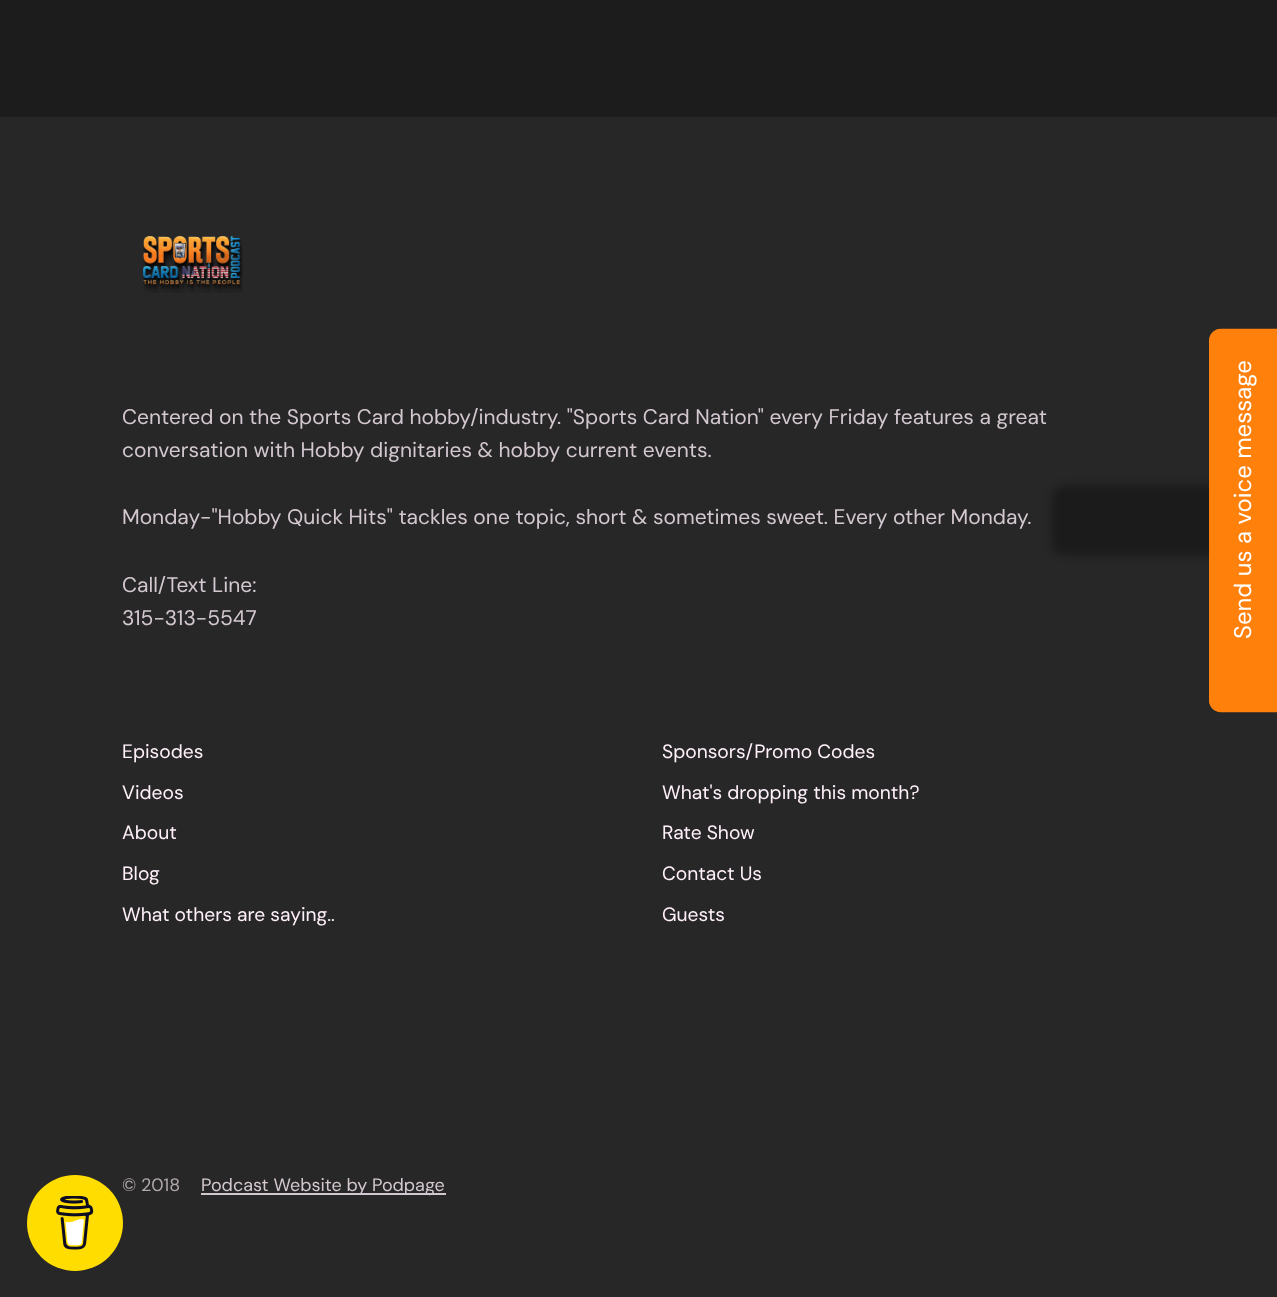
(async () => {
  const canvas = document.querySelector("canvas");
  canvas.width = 1277;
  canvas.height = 1297;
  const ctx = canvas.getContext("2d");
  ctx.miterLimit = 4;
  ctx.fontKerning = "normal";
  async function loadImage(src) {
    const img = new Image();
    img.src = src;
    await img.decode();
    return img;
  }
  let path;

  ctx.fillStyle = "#272728";
  ctx.fillRect(0, 0, 1277, 1297);
  ctx.fillStyle = "#1c1c1d";
  ctx.fillRect(0, 0, 1277, 117);
  ctx.drawImage(await loadImage("img/1.png"), 143, 236, 100, 57);
  ctx.fillStyle = "#d4c8d0";
  ctx.fillRect(201, 1193, 245, 2);
  ctx.fillStyle = "rgba(0, 0, 0, 0.3)";
  ctx.filter = "blur(4px)";
  ctx.beginPath();
  ctx.roundRect(1052, 486, 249, 69, 12);
  ctx.fill();
  ctx.filter = "none";
  ctx.fillStyle = "#ff810c";
  path = new Path2D("M1209 700V341C1209 334 1214 329 1221 329H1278V712H1221C1214 712 1209 707 1209 700Z");
  ctx.fill(path);
  path = new Path2D("M1210 700.5V340.5C1210 334.5 1215 329.5 1221 329.5H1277.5V711.5H1221C1215 711.5 1210 706.5 1210 700.5Z");
  ctx.strokeStyle = "#ff810c";
  ctx.lineWidth = 1.5;
  ctx.stroke(path);
  ctx.font = "21px DM Sans";
  ctx.fillStyle = "#d4c8d0";
  for (const [text, x, y] of [
    ["Centered on the Sports Card hobby/industry. \"Sports Card Nation\" every Friday features a great", 122, 424],
    ["conversation with Hobby dignitaries & hobby current events.", 122, 457],
    ["Monday-\"Hobby Quick Hits\" tackles one topic, short & sometimes sweet. Every other Monday.", 122, 524],
    ["Call/Text Line:", 122, 592],
    ["315-313-5547", 122, 625],
  ]) {
    ctx.fillText(text, x, y);
  }
  ctx.font = "19.25px DM Sans";
  ctx.fillStyle = "#fff0fa";
  for (const [text, x, y] of [
    ["Episodes", 122, 758],
    ["Videos", 122, 799],
    ["About", 122, 839],
    ["Blog", 122, 880],
    ["What others are saying..", 122, 921],
    ["Sponsors/Promo Codes", 662, 758],
    ["What's dropping this month?", 662, 799],
    ["Rate Show", 662, 839],
    ["Contact Us", 662, 880],
    ["Guests", 662, 921],
  ]) {
    ctx.fillText(text, x, y);
  }
  ctx.font = "18px DM Sans";
  ctx.fillStyle = "#b1a8ae";
  ctx.fillText("© 2018", 122, 1191);
  ctx.fillStyle = "#d4c8d0";
  ctx.fillText("Podcast Website by Podpage", 201, 1191);
  ctx.font = "24px DM Sans";
  ctx.fillStyle = "#ffffff";
  ctx.save();
  ctx.translate(1251, 639);
  ctx.rotate(-90 * Math.PI / 180);
  ctx.fillText("Send us a voice message", 0, 0);
  ctx.restore();
  ctx.fillStyle = "#ffdd00";
  ctx.beginPath();
  ctx.arc(75, 1223, 48, 0, Math.PI * 2);
  ctx.fill();
  ctx.drawImage(await loadImage("img/2.png"), 56, 1196, 38, 54);
})();
